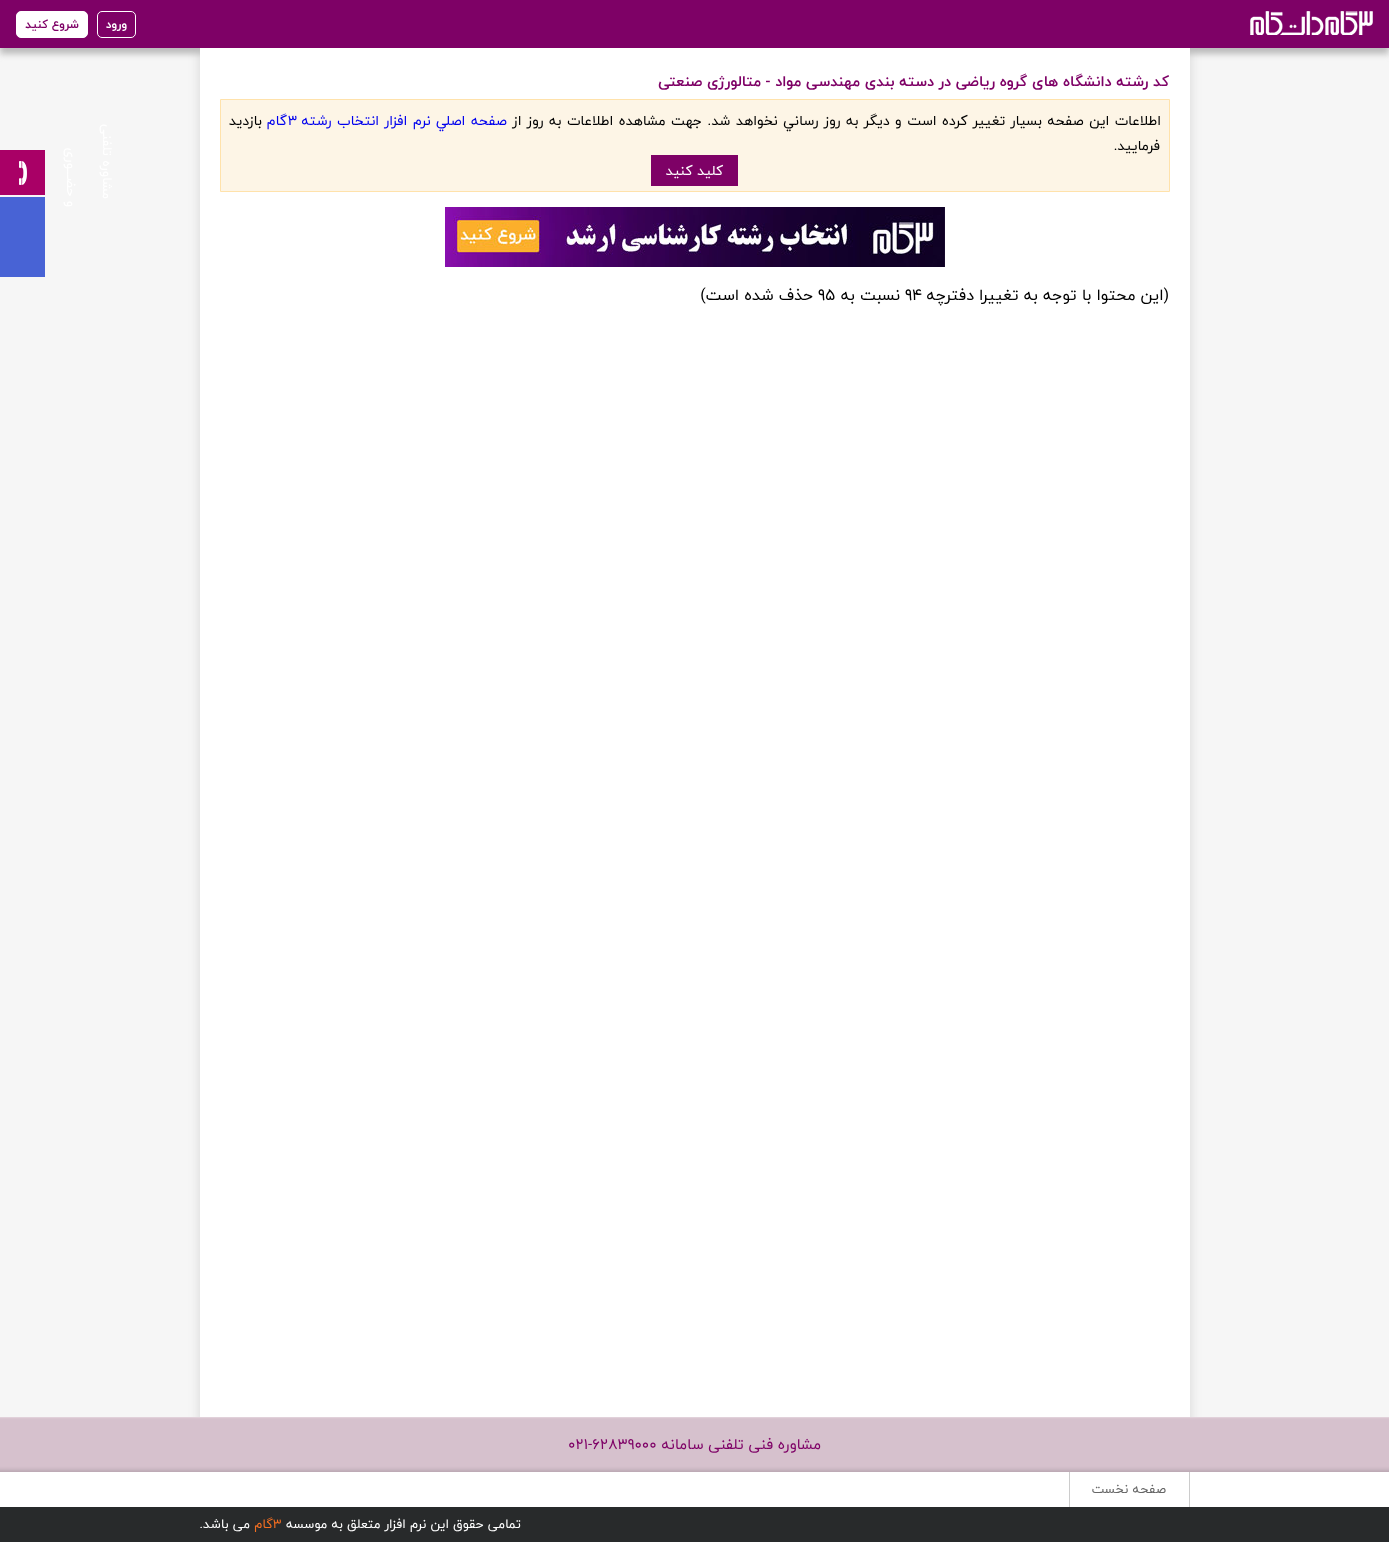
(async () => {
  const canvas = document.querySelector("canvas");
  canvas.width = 1389;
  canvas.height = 1542;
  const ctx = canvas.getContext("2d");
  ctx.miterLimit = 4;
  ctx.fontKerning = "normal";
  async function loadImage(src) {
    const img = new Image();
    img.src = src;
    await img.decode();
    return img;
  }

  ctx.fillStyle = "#f6f6f6";
  ctx.fillRect(0, 0, 1389, 1542);
  ctx.fillStyle = "rgba(200, 200, 200, 0.5)";
  ctx.filter = "blur(5px)";
  ctx.beginPath();
  ctx.rect(198, -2, 994, 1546);
  ctx.fill();
  ctx.filter = "none";
  ctx.fillStyle = "#ffffff";
  ctx.fillRect(200, 398, 990, 1019);
  ctx.fillStyle = "#bbbbbb";
  ctx.filter = "blur(3px)";
  ctx.beginPath();
  ctx.rect(0, 6, 1389, 48);
  ctx.fill();
  ctx.filter = "none";
  ctx.fillStyle = "#7e0166";
  ctx.fillRect(0, 0, 1389, 48);
  ctx.drawImage(await loadImage("img/1.png"), 1250, 11, 123, 24);
  ctx.beginPath();
  ctx.roundRect(97.5, 11.5, 38, 26, 4.5);
  ctx.strokeStyle = "#ffffff";
  ctx.stroke();
  ctx.fillStyle = "#ffffff";
  ctx.beginPath();
  ctx.roundRect(16.5, 11.5, 71, 26, 4.5);
  ctx.fill();
  ctx.stroke();
  ctx.fillRect(200, 48, 990, 350);
  ctx.fillStyle = "#fdf5e6";
  ctx.beginPath();
  ctx.rect(220.5, 99.5, 949, 92);
  ctx.fill();
  ctx.strokeStyle = "#ffe2ab";
  ctx.stroke();
  ctx.fillStyle = "#7e0166";
  ctx.fillRect(651, 155, 87, 31);
  ctx.drawImage(await loadImage("img/2.png"), 445, 207, 500, 60);
  ctx.fillStyle = "#a90066";
  ctx.fillRect(0, 150, 45, 45);
  ctx.drawImage(await loadImage("img/3.png"), 19, 161, 8, 24);
  ctx.fillStyle = "#4863d5";
  ctx.fillRect(0, 197, 45, 80);
  ctx.drawImage(await loadImage("img/4.png"), 0, 1417, 1389, 55);
  for (const [x, y, w, h, color] of [
    [0, 1472, 1389, 35, "#ffffff"],
    [1189, 1472, 1, 35, "#cccccc"],
    [1069, 1472, 1, 35, "#cccccc"],
    [0, 1507, 1389, 35, "#282a2b"],
  ]) {
    ctx.fillStyle = color;
    ctx.fillRect(x, y, w, h);
  }
  ctx.direction = "rtl";
  ctx.font = "bold 12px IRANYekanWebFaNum";
  ctx.fillStyle = "#ffffff";
  ctx.fillText("ورود", 127, 28);
  ctx.fillStyle = "#7e0166";
  ctx.fillText("شروع کنید", 79, 28);
  ctx.font = "bold 15px IRANYekanWebFaNum";
  ctx.fillText("کد رشته دانشگاه های گروه ریاضی در دسته بندی مهندسی مواد -", 1169, 86);
  ctx.fillText("متالورژی صنعتی", 761, 86);
  ctx.wordSpacing = "1.1px";
  ctx.font = "14px IRANYekanWebFaNum";
  ctx.fillStyle = "#000000";
  ctx.fillText("اطلاعات اين صفحه بسيار تغيير کرده است و ديگر به روز رساني نخواهد شد. جهت مشاهده اطلاعات به روز از", 1161, 125);
  ctx.fillStyle = "#0000ee";
  ctx.fillText("صفحه اصلي نرم افزار انتخاب رشته", 507, 125);
  ctx.wordSpacing = "0px";
  ctx.fillText("گام", 287, 125);
  ctx.direction = "ltr";
  ctx.fillText("3", 288, 125);
  ctx.direction = "rtl";
  ctx.fillStyle = "#000000";
  ctx.fillText("بازديد", 262, 125);
  ctx.fillText("فرماييد.", 1160, 150);
  ctx.fillStyle = "#ffffff";
  ctx.fillText("کليد کنيد", 723, 175);
  ctx.font = "16px IRANYekanWebFaNum";
  ctx.fillStyle = "#000000";
  ctx.fillText("(این محتوا با توجه به تغییرا", 1169, 300);
  ctx.fillText("دفترچه", 974, 300);
  ctx.direction = "ltr";
  ctx.fillText("94", 905, 300);
  ctx.direction = "rtl";
  ctx.fillText("نسبت به", 900, 300);
  ctx.direction = "ltr";
  ctx.fillText("95", 818, 300);
  ctx.direction = "rtl";
  ctx.fillText("حذف شده است)", 813, 300);
  ctx.font = "13.5px IRANYekanWebFaNum";
  ctx.fillStyle = "#ffffff";
  ctx.save();
  ctx.translate(103, 199);
  ctx.rotate(90 * Math.PI / 180);
  ctx.fillText("مشاوره تلفنی", 0, 0);
  ctx.restore();
  ctx.save();
  ctx.translate(67, 207);
  ctx.rotate(90 * Math.PI / 180);
  ctx.fillText("و حضـــوری", 0, 0);
  ctx.restore();
  ctx.font = "15px IRANYekanWebFaNum";
  ctx.fillStyle = "#7e0166";
  ctx.fillText("مشاوره فنی تلفنی سامانه", 821, 1449);
  ctx.direction = "ltr";
  ctx.fillText("021-62839000", 568, 1449);
  ctx.direction = "rtl";
  ctx.font = "13px IRANYekanWebFaNum";
  ctx.fillStyle = "#666666";
  ctx.fillText("صفحه نخست", 1166, 1493);
  ctx.fillStyle = "#ffffff";
  ctx.fillText("تمامی حقوق این نرم افزار متعلق به موسسه", 521, 1528);
  ctx.direction = "ltr";
  ctx.fillStyle = "#f36e21";
  ctx.fillText("3", 273, 1528);
  ctx.direction = "rtl";
  ctx.fillText("گام", 273, 1528);
  ctx.fillStyle = "#ffffff";
  ctx.fillText("می باشد.", 250, 1528);
})();
